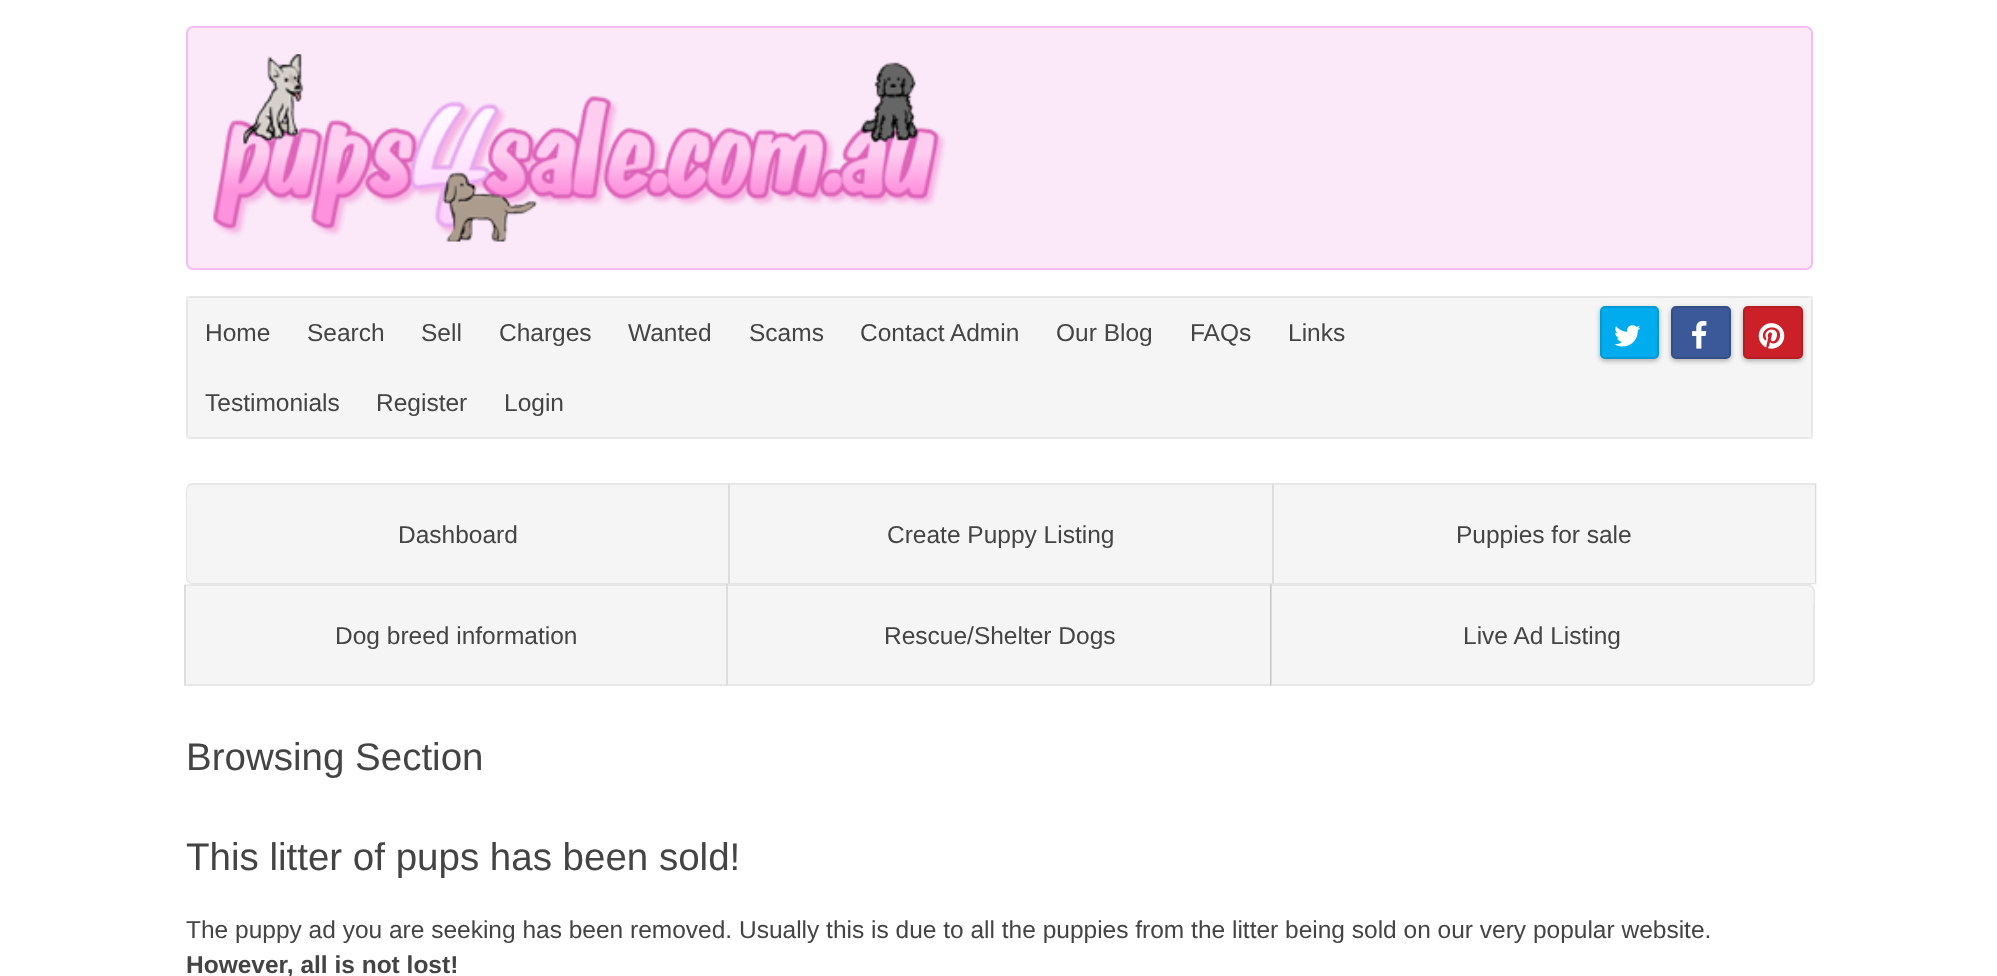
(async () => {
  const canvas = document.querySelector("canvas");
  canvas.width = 1997;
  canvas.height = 976;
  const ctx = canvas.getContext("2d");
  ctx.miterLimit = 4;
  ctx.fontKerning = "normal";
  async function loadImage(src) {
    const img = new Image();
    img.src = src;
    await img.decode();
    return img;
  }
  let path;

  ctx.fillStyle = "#ffffff";
  ctx.fillRect(0, 0, 1997, 976);
  ctx.fillStyle = "#fbe8f9";
  ctx.beginPath();
  ctx.roundRect(187, 27, 1625, 242, 6);
  ctx.fill();
  ctx.strokeStyle = "#f3bdee";
  ctx.lineWidth = 2;
  ctx.stroke();
  ctx.drawImage(await loadImage("img/1.png"), 213, 54, 733, 188);
  ctx.fillStyle = "#f5f5f5";
  ctx.beginPath();
  ctx.roundRect(186, 296, 1627, 143, 7);
  ctx.fill();
  ctx.strokeStyle = "rgba(0, 0, 0, 0.06)";
  ctx.strokeRect(187, 297, 1625, 141);
  ctx.fillStyle = "rgba(0, 0, 0, 0.15)";
  ctx.filter = "blur(2.5px)";
  ctx.beginPath();
  ctx.roundRect(1600, 308, 59, 53, 5);
  ctx.fill();
  ctx.filter = "none";
  ctx.filter = "blur(2.5px)";
  ctx.beginPath();
  ctx.roundRect(1600, 308, 59, 53, 5);
  ctx.fill();
  ctx.filter = "none";
  ctx.fillStyle = "#00aced";
  ctx.beginPath();
  ctx.roundRect(1601, 307, 57, 51, 4);
  ctx.fill();
  ctx.strokeStyle = "#0099d4";
  ctx.stroke();
  ctx.drawImage(await loadImage("img/2.png"), 1614, 325, 27, 22);
  ctx.fillStyle = "rgba(0, 0, 0, 0.15)";
  ctx.filter = "blur(2.5px)";
  ctx.beginPath();
  ctx.roundRect(1671, 308, 60, 53, 5);
  ctx.fill();
  ctx.filter = "none";
  ctx.filter = "blur(2.5px)";
  ctx.beginPath();
  ctx.roundRect(1671, 308, 60, 53, 5);
  ctx.fill();
  ctx.filter = "none";
  ctx.fillStyle = "#3b5998";
  ctx.beginPath();
  ctx.roundRect(1672, 307, 58, 51, 4);
  ctx.fill();
  ctx.strokeStyle = "#344e86";
  ctx.stroke();
  ctx.drawImage(await loadImage("img/3.png"), 1692, 321, 15, 28);
  ctx.fillStyle = "rgba(0, 0, 0, 0.15)";
  ctx.filter = "blur(2.5px)";
  ctx.beginPath();
  ctx.roundRect(1743, 308, 60, 53, 5);
  ctx.fill();
  ctx.filter = "none";
  ctx.filter = "blur(2.5px)";
  ctx.beginPath();
  ctx.roundRect(1743, 308, 60, 53, 5);
  ctx.fill();
  ctx.filter = "none";
  ctx.fillStyle = "#cb2027";
  ctx.beginPath();
  ctx.roundRect(1744, 307, 58, 51, 4);
  ctx.fill();
  ctx.strokeStyle = "#b51d23";
  ctx.stroke();
  ctx.drawImage(await loadImage("img/4.png"), 1758, 323, 27, 26);
  ctx.fillStyle = "#f5f5f5";
  ctx.beginPath();
  ctx.roundRect(186, 483, 544, 102, [7, 0, 0, 7]);
  ctx.fill();
  ctx.fillStyle = "rgba(0, 0, 0, 0.06)";
  path = new Path2D("M192 483C190 483 189 484 188 485L189 486L192 485H728L730 483Z");
  ctx.fill(path);
  path = new Path2D("M729 584H192C190 584 189 583 188 582L189 581L191 583H728Z");
  ctx.fill(path);
  path = new Path2D("M188 485C184 490 186 502 186 505V579L188 582L189 581L187 578V489L189 486Z");
  ctx.fill(path);
  ctx.fillStyle = "#f5f5f5";
  ctx.fillRect(728, 483, 544, 102);
  ctx.fillStyle = "#e6e6e6";
  path = new Path2D("M728 483H1274L1272 485H730Z");
  ctx.fill(path);
  ctx.fillStyle = "rgba(0, 0, 0, 0.06)";
  path = new Path2D("M1274 584H728L730 583H1272Z");
  ctx.fill(path);
  ctx.fillStyle = "rgba(0, 0, 0, 0.1)";
  path = new Path2D("M728 584V483L730 485V583Z");
  ctx.fill(path);
  ctx.fillStyle = "#f5f5f5";
  ctx.fillRect(1272, 483, 545, 102);
  ctx.fillStyle = "#e6e6e6";
  path = new Path2D("M1272 483H1816L1815 485H1274Z");
  ctx.fill(path);
  ctx.fillStyle = "rgba(0, 0, 0, 0.1)";
  path = new Path2D("M1816 483V584L1815 583V485Z");
  ctx.fill(path);
  ctx.fillStyle = "rgba(0, 0, 0, 0.06)";
  path = new Path2D("M1816 584H1272L1274 583H1815Z");
  ctx.fill(path);
  ctx.fillStyle = "rgba(0, 0, 0, 0.1)";
  path = new Path2D("M1272 584V483L1274 485V583Z");
  ctx.fill(path);
  ctx.fillStyle = "#f5f5f5";
  ctx.fillRect(184, 585, 542, 101);
  ctx.fillStyle = "rgba(0, 0, 0, 0.06)";
  path = new Path2D("M184 584H728L726 586H186Z");
  ctx.fill(path);
  ctx.fillStyle = "rgba(0, 0, 0, 0.1)";
  path = new Path2D("M728 584V686L726 684V586Z");
  ctx.fill(path);
  ctx.fillStyle = "rgba(0, 0, 0, 0.06)";
  path = new Path2D("M728 686H184L186 684H726Z");
  ctx.fill(path);
  ctx.fillStyle = "rgba(0, 0, 0, 0.1)";
  path = new Path2D("M184 686V584L186 586V684Z");
  ctx.fill(path);
  ctx.fillStyle = "#f5f5f5";
  ctx.fillRect(726, 585, 545, 101);
  ctx.fillStyle = "rgba(0, 0, 0, 0.06)";
  path = new Path2D("M726 584H1272L1270 586H728Z");
  ctx.fill(path);
  ctx.fillStyle = "rgba(0, 0, 0, 0.1)";
  path = new Path2D("M1272 584V686L1270 684V586Z");
  ctx.fill(path);
  ctx.fillStyle = "rgba(0, 0, 0, 0.06)";
  path = new Path2D("M1272 686H726L728 684H1270Z");
  ctx.fill(path);
  ctx.fillStyle = "rgba(0, 0, 0, 0.1)";
  path = new Path2D("M726 686V584L728 586V684Z");
  ctx.fill(path);
  ctx.fillStyle = "#f5f5f5";
  ctx.beginPath();
  ctx.roundRect(1271, 585, 544, 101, [0, 7, 7, 0]);
  ctx.fill();
  ctx.fillStyle = "rgba(0, 0, 0, 0.06)";
  path = new Path2D("M1272 586L1270 584H1810L1813 586L1812 588C1811 587 1809 586 1808 586Z");
  ctx.fill(path);
  path = new Path2D("M1815 681L1813 684L1811 683L1813 680V606C1813 605 1815 592 1812 588L1813 586L1815 590Z");
  ctx.fill(path);
  path = new Path2D("M1270 686H1808C1810 686 1812 685 1813 684L1811 683C1811 684 1809 684 1808 684H1272Z");
  ctx.fill(path);
  ctx.fillStyle = "rgba(0, 0, 0, 0.1)";
  path = new Path2D("M1272 586L1270 584V686L1272 684Z");
  ctx.fill(path);
  ctx.font = "24.5px Liberation Sans";
  ctx.fillStyle = "#444444";
  for (const [text, x, y] of [
    ["Home", 205, 341],
    ["Search", 307, 341],
    ["Sell", 421, 341],
    ["Charges", 499, 341],
    ["Wanted", 628, 341],
    ["Scams", 749, 341],
    ["Contact Admin", 860, 341],
    ["Our Blog", 1056, 341],
    ["FAQs", 1190, 341],
    ["Links", 1288, 341],
    ["Testimonials", 205, 411],
    ["Register", 376, 411],
    ["Login", 504, 411],
    ["Dashboard", 398, 543],
    ["Create Puppy Listing", 887, 543],
    ["Puppies for sale", 1456, 543],
    ["Dog breed information", 335, 644],
    ["Rescue/Shelter Dogs", 884, 644],
    ["Live Ad Listing", 1463, 644],
  ]) {
    ctx.fillText(text, x, y);
  }
  ctx.font = "38.5px Liberation Sans";
  ctx.fillText("Browsing Section", 186, 770);
  ctx.fillText("This litter of pups has been sold!", 186, 870);
  ctx.font = "24.5px Liberation Sans";
  ctx.fillText("The puppy ad you are seeking has been removed. Usually this is due to all the puppies from the litter being sold on our very popular website.", 186, 938);
  ctx.font = "bold 24.5px Liberation Sans";
  ctx.fillText("However, all is not lost!", 186, 973);
})();
